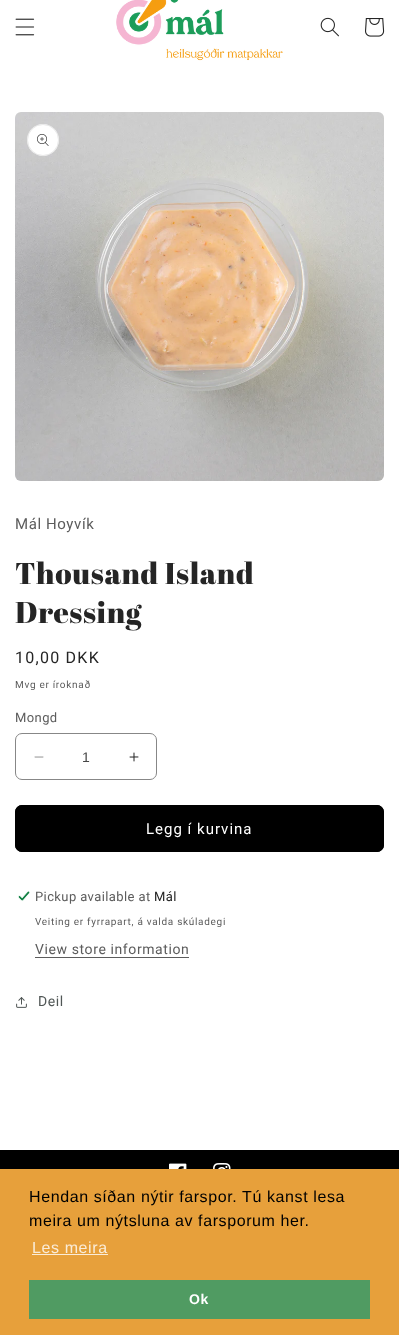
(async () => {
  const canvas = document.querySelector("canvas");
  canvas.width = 399;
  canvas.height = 1335;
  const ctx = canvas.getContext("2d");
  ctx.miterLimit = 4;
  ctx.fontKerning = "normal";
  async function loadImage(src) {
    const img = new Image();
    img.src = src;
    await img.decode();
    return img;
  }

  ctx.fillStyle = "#ffffff";
  ctx.fillRect(0, 0, 399, 1335);
  ctx.drawImage(await loadImage("img/1.png"), 15, 18, 20, 18);
  ctx.drawImage(await loadImage("img/2.png"), 116, 0, 167, 61);
  ctx.drawImage(await loadImage("img/3.png"), 320, 17, 19, 20);
  ctx.drawImage(await loadImage("img/4.png"), 365, 18, 20, 19);
  ctx.drawImage(await loadImage("img/5.png"), 15, 112, 369, 369);
  ctx.beginPath();
  ctx.arc(43, 140, 16, 0, Math.PI * 2);
  ctx.fill();
  ctx.beginPath();
  ctx.arc(43, 140, 15.5, 0, Math.PI * 2);
  ctx.strokeStyle = "rgba(37, 37, 37, 0.1)";
  ctx.stroke();
  ctx.drawImage(await loadImage("img/6.png"), 37, 134, 12, 12);
  ctx.drawImage(await loadImage("img/7.png"), 34, 756, 10, 2);
  ctx.drawImage(await loadImage("img/8.png"), 129, 752, 10, 10);
  ctx.beginPath();
  ctx.roundRect(15.5, 733.5, 141, 46, 6.5);
  ctx.strokeStyle = "#878787";
  ctx.stroke();
  ctx.fillStyle = "#000000";
  ctx.beginPath();
  ctx.roundRect(15, 805, 369, 47, 7);
  ctx.fill();
  ctx.beginPath();
  ctx.roundRect(15.5, 805.5, 368, 46, 6.5);
  ctx.strokeStyle = "#000000";
  ctx.stroke();
  ctx.drawImage(await loadImage("img/9.png"), 18, 891, 12, 10);
  ctx.fillStyle = "#5c5c5c";
  ctx.fillRect(35, 957, 154, 1);
  ctx.drawImage(await loadImage("img/10.png"), 16, 997, 11, 11);
  ctx.fillStyle = "#000000";
  ctx.fillRect(0, 1150, 399, 19);
  ctx.drawImage(await loadImage("img/11.png"), 169, 1163, 18, 6);
  ctx.drawImage(await loadImage("img/12.png"), 213, 1163, 18, 6);
  for (const [x, y, w, h, color] of [
    [0, 1169, 399, 166, "#e7a03b"],
    [32, 1254, 76, 1, "#faecd8"],
    [29, 1280, 341, 39, "#509b62"],
  ]) {
    ctx.fillStyle = color;
    ctx.fillRect(x, y, w, h);
  }
  ctx.letterSpacing = "0.6px";
  ctx.font = "15px Roboto";
  ctx.fillStyle = "#5c5c5c";
  ctx.fillText("Mál Hoyvík", 15, 529);
  ctx.font = "30px Abril Fatface";
  ctx.fillStyle = "#252525";
  ctx.fillText("Thousand Island", 15, 584);
  ctx.fillText("Dressing", 15, 623);
  ctx.letterSpacing = "1.25px";
  ctx.font = "16px Roboto";
  ctx.fillText("10,00 DKK", 15, 663);
  ctx.letterSpacing = "0.7px";
  ctx.font = "10px Roboto";
  ctx.fillStyle = "#5c5c5c";
  ctx.fillText("Mvg er íroknað", 15, 688);
  ctx.letterSpacing = "0.4px";
  ctx.font = "13px Roboto";
  ctx.fillText("Mongd", 15, 722);
  ctx.letterSpacing = "0px";
  ctx.font = "14px Liberation Sans";
  ctx.fillStyle = "#464646";
  ctx.fillText("1", 82, 762);
  ctx.letterSpacing = "1px";
  ctx.font = "15px Roboto";
  ctx.fillStyle = "#ffffff";
  ctx.fillText("Legg í kurvina", 146, 834);
  ctx.letterSpacing = "0.4px";
  ctx.font = "13px Roboto";
  ctx.fillStyle = "#5c5c5c";
  ctx.fillText("Pickup available at", 35, 901);
  ctx.fillStyle = "#252525";
  ctx.fillText("Mál", 154, 901);
  ctx.letterSpacing = "0.7px";
  ctx.font = "10px Roboto";
  ctx.fillStyle = "#5c5c5c";
  ctx.fillText("Veiting er fyrrapart, á valda skúladegi", 35, 925);
  ctx.letterSpacing = "0.6px";
  ctx.font = "14px Roboto";
  ctx.fillText("View store information", 35, 954);
  ctx.fillStyle = "#505655";
  ctx.fillText("Deil", 38, 1006);
  ctx.font = "16px Liberation Sans";
  ctx.fillStyle = "#000000";
  ctx.fillText("Hendan síðan nýtir farspor. Tú kanst lesa", 29, 1202);
  ctx.fillText("meira um nýtsluna av farsporum her.", 29, 1226);
  ctx.fillStyle = "#faecd8";
  ctx.fillText("Les meira", 32, 1253);
  ctx.font = "bold 14px Liberation Sans";
  ctx.fillStyle = "#ffffff";
  ctx.fillText("Ok", 189, 1304);
})();
